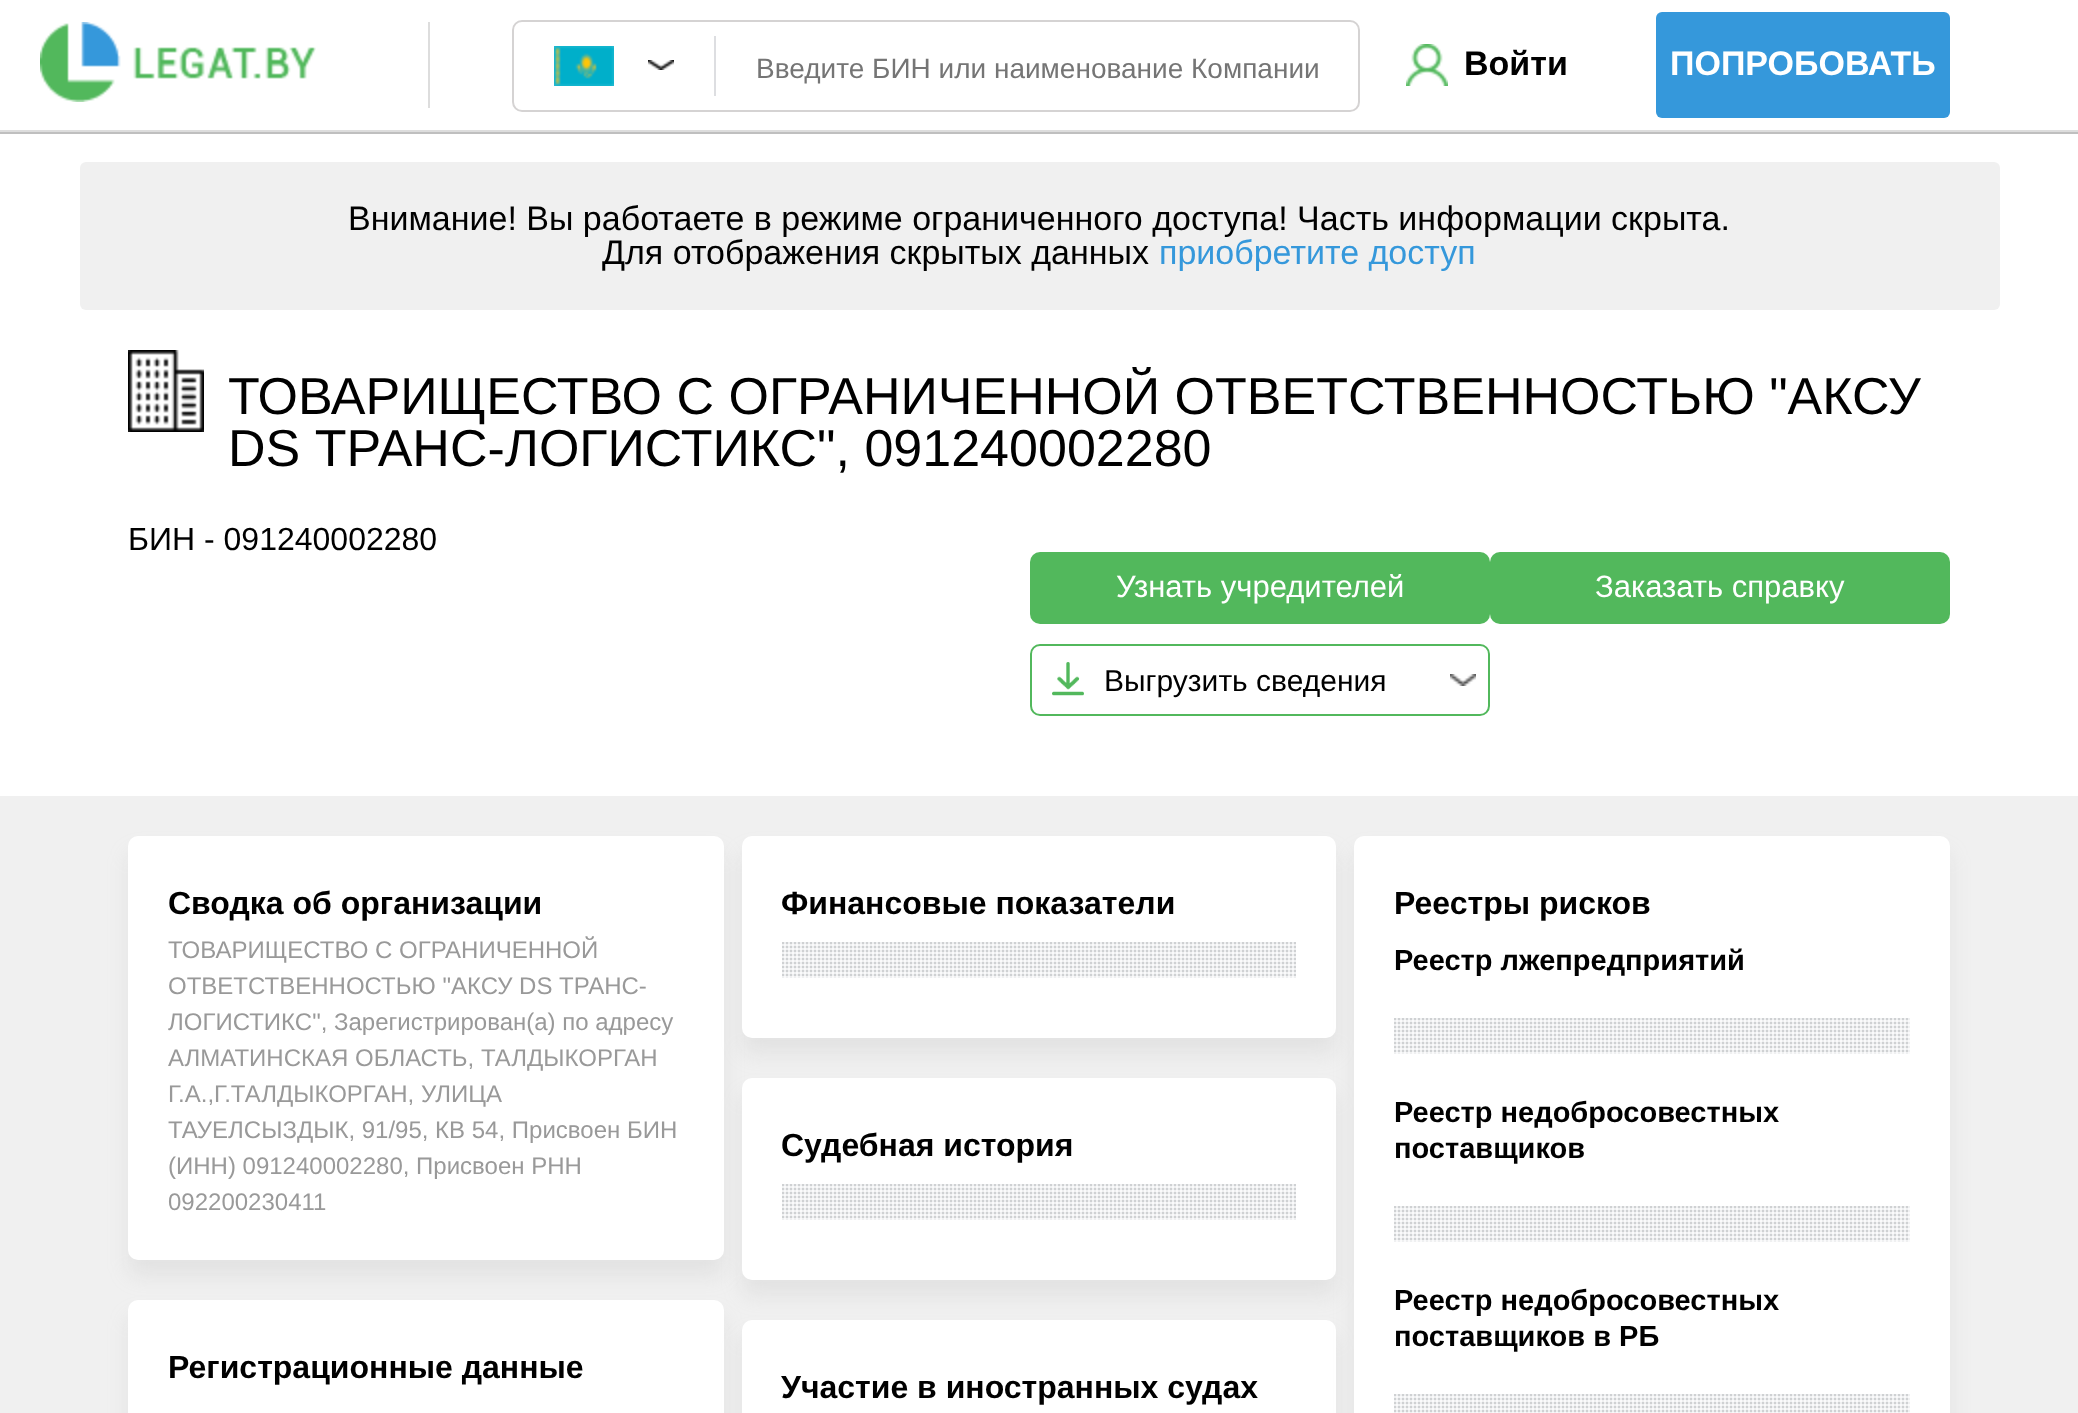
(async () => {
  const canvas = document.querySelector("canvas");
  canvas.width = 2078;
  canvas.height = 1413;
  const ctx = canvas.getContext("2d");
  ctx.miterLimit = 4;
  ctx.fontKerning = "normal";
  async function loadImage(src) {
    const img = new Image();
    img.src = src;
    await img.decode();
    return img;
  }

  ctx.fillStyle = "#ffffff";
  ctx.fillRect(0, 0, 2078, 1413);
  for (const [x, y, w, h, color] of [
    [0, 132, 2078, 2, "#bfbfbf"],
    [0, 130, 2078, 2, "#dddddd"],
    [428, 22, 2, 86, "#dddddd"],
  ]) {
    ctx.fillStyle = color;
    ctx.fillRect(x, y, w, h);
  }
  ctx.drawImage(await loadImage("img/1.png"), 40, 22, 276, 80);
  ctx.beginPath();
  ctx.roundRect(513, 21, 846, 90, 9);
  ctx.strokeStyle = "#d5d3d3";
  ctx.lineWidth = 2;
  ctx.stroke();
  ctx.fillStyle = "#dddee1";
  ctx.fillRect(714, 36, 2, 60);
  ctx.drawImage(await loadImage("img/2.png"), 554, 46, 60, 40);
  ctx.drawImage(await loadImage("img/3.png"), 648, 60, 26, 10);
  ctx.drawImage(await loadImage("img/4.png"), 1406, 44, 42, 42);
  ctx.fillStyle = "#3598db";
  ctx.beginPath();
  ctx.roundRect(1656, 12, 294, 106, 6);
  ctx.fill();
  ctx.fillStyle = "#f0f0f0";
  ctx.beginPath();
  ctx.roundRect(80, 162, 1920, 148, 6);
  ctx.fill();
  ctx.drawImage(await loadImage("img/5.png"), 128, 350, 76, 82);
  ctx.fillStyle = "#52b85c";
  ctx.beginPath();
  ctx.roundRect(1030, 552, 460, 72, 10);
  ctx.fill();
  ctx.beginPath();
  ctx.roundRect(1490, 552, 460, 72, 10);
  ctx.fill();
  ctx.beginPath();
  ctx.roundRect(1031, 645, 458, 70, 9);
  ctx.strokeStyle = "#52b85c";
  ctx.stroke();
  ctx.drawImage(await loadImage("img/6.png"), 1052, 662, 32, 34);
  ctx.drawImage(await loadImage("img/7.png"), 1450, 674, 26, 12);
  ctx.fillStyle = "#f0f0f0";
  ctx.fillRect(0, 796, 2078, 617);
  ctx.fillStyle = "rgba(174, 174, 174, 0.2)";
  ctx.filter = "blur(10px)";
  ctx.beginPath();
  ctx.roundRect(128, 852, 596, 424, 10);
  ctx.fill();
  ctx.filter = "none";
  ctx.fillStyle = "#ffffff";
  ctx.beginPath();
  ctx.roundRect(128, 836, 596, 424, 10);
  ctx.fill();
  ctx.fillStyle = "rgba(174, 174, 174, 0.2)";
  ctx.filter = "blur(10px)";
  ctx.beginPath();
  ctx.roundRect(128, 1316, 596, 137, 10);
  ctx.fill();
  ctx.filter = "none";
  ctx.fillStyle = "#ffffff";
  ctx.beginPath();
  ctx.roundRect(128, 1300, 596, 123, 10);
  ctx.fill();
  ctx.fillStyle = "rgba(174, 174, 174, 0.2)";
  ctx.filter = "blur(10px)";
  ctx.beginPath();
  ctx.roundRect(742, 852, 594, 202, 10);
  ctx.fill();
  ctx.filter = "none";
  ctx.fillStyle = "#ffffff";
  ctx.beginPath();
  ctx.roundRect(742, 836, 594, 202, 10);
  ctx.fill();
  ctx.drawImage(await loadImage("img/8.png"), 782, 942, 514, 36);
  ctx.fillStyle = "rgba(174, 174, 174, 0.2)";
  ctx.filter = "blur(10px)";
  ctx.beginPath();
  ctx.roundRect(742, 1094, 594, 202, 10);
  ctx.fill();
  ctx.filter = "none";
  ctx.fillStyle = "#ffffff";
  ctx.beginPath();
  ctx.roundRect(742, 1078, 594, 202, 10);
  ctx.fill();
  ctx.drawImage(await loadImage("img/8.png"), 782, 1184, 514, 36);
  ctx.fillStyle = "rgba(174, 174, 174, 0.2)";
  ctx.filter = "blur(10px)";
  ctx.beginPath();
  ctx.roundRect(742, 1336, 594, 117, 10);
  ctx.fill();
  ctx.filter = "none";
  ctx.fillStyle = "#ffffff";
  ctx.beginPath();
  ctx.roundRect(742, 1320, 594, 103, 10);
  ctx.fill();
  ctx.fillStyle = "rgba(174, 174, 174, 0.2)";
  ctx.filter = "blur(10px)";
  ctx.beginPath();
  ctx.roundRect(1354, 852, 596, 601, 10);
  ctx.fill();
  ctx.filter = "none";
  ctx.fillStyle = "#ffffff";
  ctx.beginPath();
  ctx.roundRect(1354, 836, 596, 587, 10);
  ctx.fill();
  ctx.drawImage(await loadImage("img/9.png"), 1394, 1018, 516, 36);
  ctx.drawImage(await loadImage("img/9.png"), 1394, 1206, 516, 36);
  ctx.drawImage(await loadImage("img/10.png"), 1394, 1394, 516, 19);
  ctx.font = "28px Liberation Sans";
  ctx.fillStyle = "#757575";
  ctx.fillText("Введите БИН или наименование Компании", 756, 78);
  ctx.font = "bold 34px Liberation Sans";
  ctx.fillStyle = "#000000";
  ctx.fillText("Войти", 1464, 75);
  ctx.fillStyle = "#ffffff";
  ctx.fillText("ПОПРОБОВАТЬ", 1670, 75);
  ctx.font = "34px Liberation Sans";
  ctx.fillStyle = "#000000";
  ctx.fillText("Внимание! Вы работаете в режиме ограниченного доступа! Часть информации скрыта.", 348, 230);
  ctx.fillText("Для отображения скрытых данных", 602, 264);
  ctx.fillStyle = "#3598db";
  ctx.fillText("приобретите доступ", 1159, 264);
  ctx.font = "52px Liberation Sans";
  ctx.fillStyle = "#000000";
  ctx.fillText("ТОВАРИЩЕСТВО С ОГРАНИЧЕННОЙ ОТВЕТСТВЕННОСТЬЮ \"АКСУ", 228, 414);
  ctx.fillText("DS ТРАНС-ЛОГИСТИКС\", 091240002280", 228, 466);
  ctx.font = "32px Liberation Sans";
  ctx.fillText("БИН - 091240002280", 128, 550);
  ctx.font = "31px Liberation Sans";
  ctx.fillStyle = "#ffffff";
  ctx.fillText("Узнать учредителей", 1116, 597);
  ctx.fillText("Заказать справку", 1595, 597);
  ctx.font = "30px Liberation Sans";
  ctx.fillStyle = "#000000";
  ctx.fillText("Выгрузить сведения", 1104, 691);
  ctx.font = "bold 32px Liberation Sans";
  ctx.fillText("Сводка об организации", 168, 914);
  ctx.font = "24px Liberation Sans";
  ctx.fillStyle = "#999999";
  for (const [text, x, y] of [
    ["ТОВАРИЩЕСТВО С ОГРАНИЧЕННОЙ", 168, 958],
    ["ОТВЕТСТВЕННОСТЬЮ \"АКСУ DS ТРАНС-", 168, 994],
    ["ЛОГИСТИКС\", Зарегистрирован(а) по адресу", 168, 1030],
    ["АЛМАТИНСКАЯ ОБЛАСТЬ, ТАЛДЫКОРГАН", 168, 1066],
    ["Г.А.,Г.ТАЛДЫКОРГАН, УЛИЦА", 168, 1102],
    ["ТАУЕЛСЫЗДЫК, 91/95, КВ 54, Присвоен БИН", 168, 1138],
    ["(ИНН) 091240002280, Присвоен РНН", 168, 1174],
    ["092200230411", 168, 1210],
  ]) {
    ctx.fillText(text, x, y);
  }
  ctx.font = "bold 32px Liberation Sans";
  ctx.fillStyle = "#000000";
  for (const [text, x, y] of [
    ["Регистрационные данные", 168, 1378],
    ["Финансовые показатели", 781, 914],
    ["Судебная история", 781, 1156],
    ["Участие в иностранных судах", 781, 1398],
    ["Реестры рисков", 1394, 914],
  ]) {
    ctx.fillText(text, x, y);
  }
  ctx.font = "bold 29px Liberation Sans";
  for (const [text, x, y] of [
    ["Реестр лжепредприятий", 1394, 970],
    ["Реестр недобросовестных", 1394, 1122],
    ["поставщиков", 1394, 1158],
    ["Реестр недобросовестных", 1394, 1310],
    ["поставщиков в РБ", 1394, 1346],
  ]) {
    ctx.fillText(text, x, y);
  }
})();
